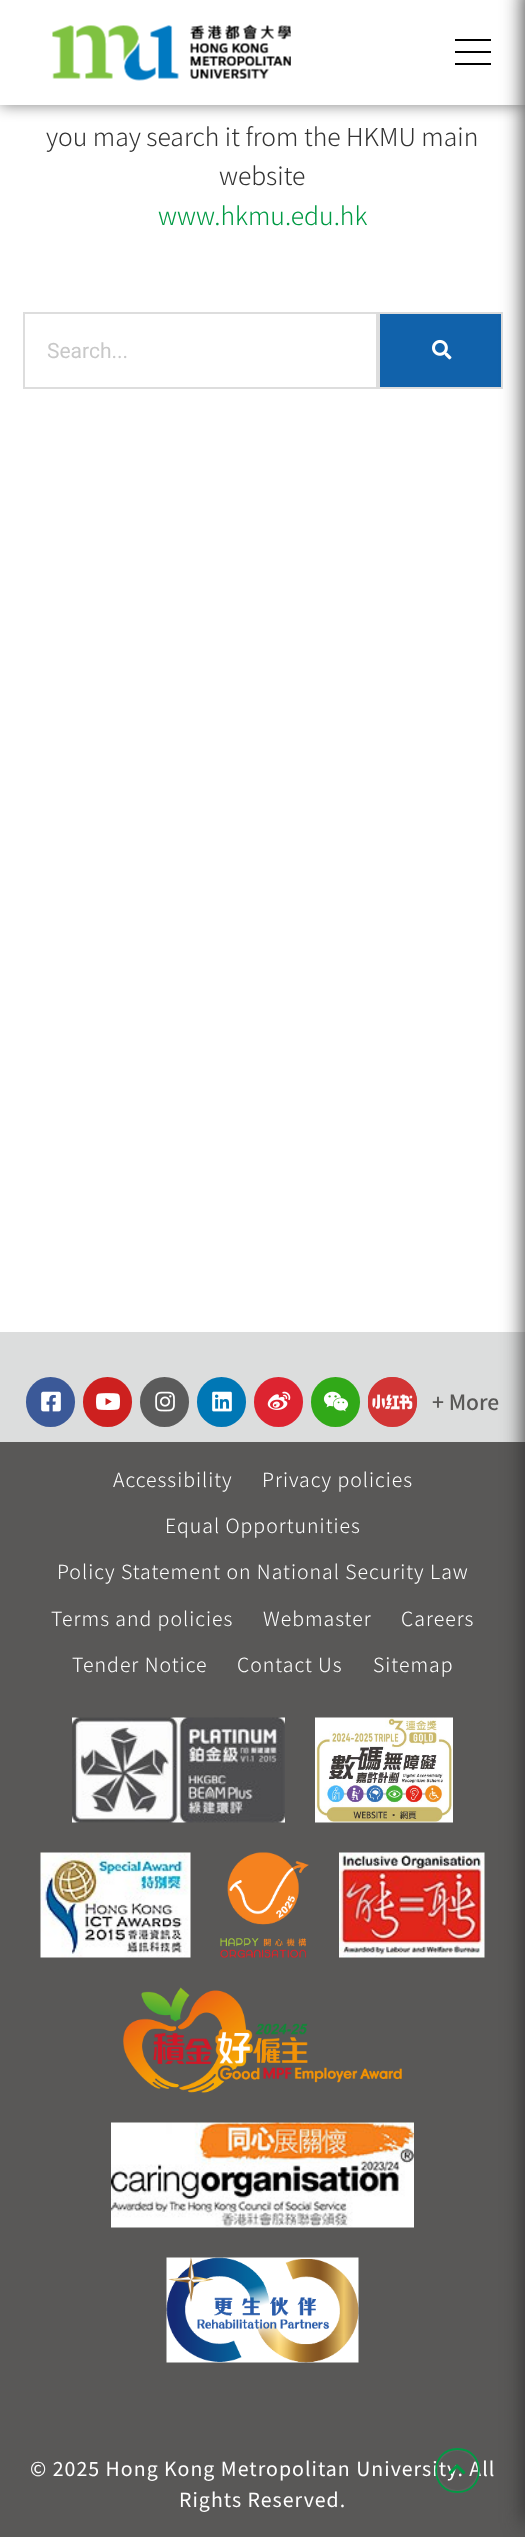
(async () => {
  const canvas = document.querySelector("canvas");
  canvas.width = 525;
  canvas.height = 2537;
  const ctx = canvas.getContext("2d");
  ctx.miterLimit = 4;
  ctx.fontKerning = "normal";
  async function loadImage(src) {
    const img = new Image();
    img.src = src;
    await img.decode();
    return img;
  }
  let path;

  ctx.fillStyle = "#ffffff";
  ctx.fillRect(0, 0, 525, 2537);
  ctx.fillStyle = "rgba(0, 0, 0, 0.5)";
  ctx.filter = "blur(7.5px)";
  ctx.beginPath();
  ctx.rect(0, 0, 525, 105);
  ctx.fill();
  ctx.filter = "none";
  ctx.fillStyle = "#ffffff";
  ctx.fillRect(0, 0, 525, 105);
  ctx.drawImage(await loadImage("img/1.png"), 52, 24, 239, 57);
  for (const [x, y, w, h, color] of [
    [455, 51, 36, 2, "#000000"],
    [455, 39, 36, 2, "#000000"],
    [455, 63, 36, 2, "#000000"],
  ]) {
    ctx.fillStyle = color;
    ctx.fillRect(x, y, w, h);
  }
  ctx.fillStyle = "#1162ab";
  ctx.beginPath();
  ctx.rect(379, 313, 123, 75);
  ctx.fill();
  ctx.strokeStyle = "#dddddd";
  ctx.lineWidth = 2;
  ctx.stroke();
  ctx.fillStyle = "#dcdddd";
  ctx.fillRect(0, 1332, 525, 110);
  ctx.fillStyle = "#595857";
  ctx.fillRect(0, 1442, 525, 1095);
  ctx.fillStyle = "#2d2d2d";
  ctx.filter = "blur(11px)";
  ctx.beginPath();
  ctx.rect(525, -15, 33, 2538);
  ctx.fill();
  ctx.filter = "none";
  ctx.strokeRect(24, 313, 353, 75);
  ctx.drawImage(await loadImage("img/2.png"), 432, 339, 20, 21);
  ctx.fillStyle = "#3b5998";
  ctx.beginPath();
  ctx.roundRect(26, 1377, 49, 50, 24.5);
  ctx.fill();
  ctx.drawImage(await loadImage("img/3.png"), 41, 1391, 20, 21);
  ctx.fillStyle = "#cd201f";
  ctx.beginPath();
  ctx.roundRect(83, 1377, 49, 50, 24.5);
  ctx.fill();
  ctx.drawImage(await loadImage("img/4.png"), 96, 1393, 24, 17);
  ctx.fillStyle = "#5b5b5b";
  ctx.beginPath();
  ctx.roundRect(140, 1377, 49, 50, 24.5);
  ctx.fill();
  ctx.drawImage(await loadImage("img/5.png"), 155, 1391, 20, 21);
  ctx.fillStyle = "#0077b5";
  ctx.beginPath();
  ctx.roundRect(197, 1377, 49, 50, 24.5);
  ctx.fill();
  ctx.drawImage(await loadImage("img/6.png"), 212, 1391, 20, 21);
  ctx.fillStyle = "#dd2430";
  ctx.beginPath();
  ctx.roundRect(254, 1377, 49, 50, 24.5);
  ctx.fill();
  ctx.drawImage(await loadImage("img/7.png"), 267, 1391, 24, 19);
  ctx.fillStyle = "#31a918";
  ctx.beginPath();
  ctx.roundRect(311, 1377, 49, 50, 24.5);
  ctx.fill();
  ctx.drawImage(await loadImage("img/8.png"), 323, 1391, 26, 21);
  ctx.fillStyle = "#d23535";
  ctx.beginPath();
  ctx.roundRect(368, 1377, 49, 50, 24.5);
  ctx.fill();
  ctx.drawImage(await loadImage("img/9.png"), 368, 1377, 49, 50);
  ctx.drawImage(await loadImage("img/10.png"), 72, 1717, 213, 106);
  ctx.drawImage(await loadImage("img/11.png"), 315, 1717, 138, 106);
  ctx.drawImage(await loadImage("img/12.png"), 40, 1852, 151, 106);
  ctx.drawImage(await loadImage("img/13.png"), 220, 1852, 89, 106);
  ctx.drawImage(await loadImage("img/14.png"), 339, 1852, 146, 106);
  ctx.drawImage(await loadImage("img/15.png"), 123, 1987, 279, 106);
  ctx.drawImage(await loadImage("img/16.png"), 111, 2122, 303, 106);
  ctx.drawImage(await loadImage("img/17.png"), 166, 2257, 193, 106);
  ctx.font = "300 24.75px Noto Sans TC";
  ctx.fillStyle = "#333333";
  ctx.fillText("you may search it from the HKMU main", 46, 146);
  ctx.fillText("website", 219, 185);
  ctx.fillStyle = "#009a44";
  ctx.fillText("www.hkmu.edu.hk", 158, 225);
  ctx.font = "21px Roboto";
  ctx.fillStyle = "#c8c8c8";
  ctx.fillText("Search...", 47, 358);
  ctx.font = "500 21px Noto Sans TC";
  ctx.fillStyle = "#595857";
  ctx.fillText("+ More", 432, 1410);
  ctx.letterSpacing = "1px";
  ctx.font = "300 19.5px Noto Sans TC";
  ctx.fillStyle = "#ffffff";
  for (const [text, x, y] of [
    ["Accessibility", 113, 1487],
    ["Privacy policies", 262, 1487],
    ["Equal Opportunities", 165, 1533],
    ["Policy Statement on National Security Law", 57, 1579],
    ["Terms and policies", 51, 1626],
    ["Webmaster", 263, 1626],
    ["Careers", 401, 1626],
    ["Tender Notice", 72, 1672],
    ["Contact Us", 237, 1672],
    ["Sitemap", 373, 1672],
  ]) {
    ctx.fillText(text, x, y);
  }
  ctx.letterSpacing = "1.05px";
  ctx.font = "19.5px Noto Sans TC";
  ctx.fillText("© 2025 Hong Kong Metropolitan University. All", 30, 2476);
  ctx.fillText("Rights Reserved.", 179, 2507);
  ctx.beginPath();
  ctx.arc(457.5, 2470.5, 21, 0, Math.PI * 2);
  ctx.strokeStyle = "rgba(130, 130, 130, 0.2)";
  ctx.lineWidth = 3;
  ctx.stroke();
  path = new Path2D("M457.5 2449C486 2449 486 2492 457.5 2492C429 2492 429 2449 457.5 2449");
  ctx.strokeStyle = "#009a44";
  ctx.lineWidth = 1.8;
  ctx.stroke(path);
  ctx.drawImage(await loadImage("img/18.png"), 448, 2464, 18, 11);
})();
